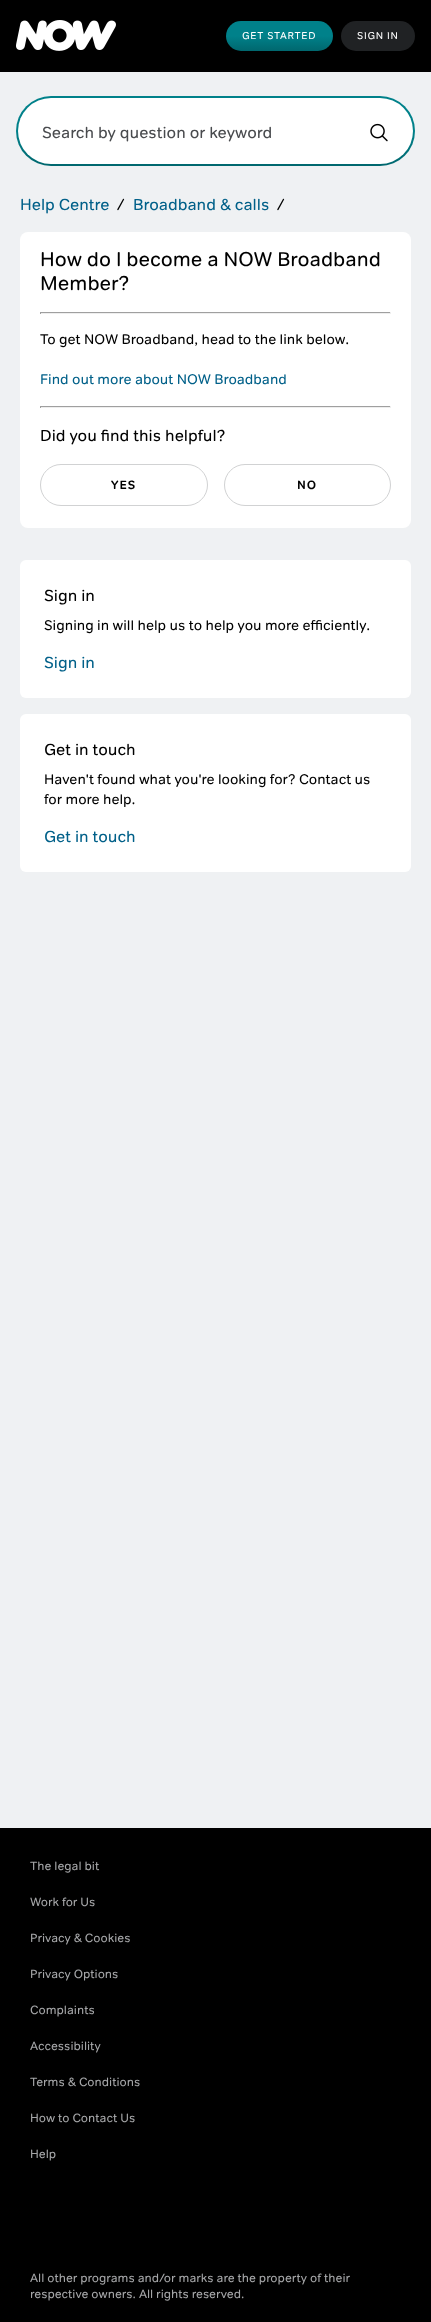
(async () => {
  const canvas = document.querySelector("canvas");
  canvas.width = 431;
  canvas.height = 2322;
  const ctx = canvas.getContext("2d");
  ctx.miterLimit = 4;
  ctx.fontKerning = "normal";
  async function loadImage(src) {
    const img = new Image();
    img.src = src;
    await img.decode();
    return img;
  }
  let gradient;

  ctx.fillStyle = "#eff1f3";
  ctx.fillRect(0, 0, 431, 2322);
  ctx.fillStyle = "#000000";
  ctx.fillRect(0, 0, 431, 72);
  ctx.drawImage(await loadImage("img/1.png"), 16, 20, 100, 31);
  gradient = ctx.createLinearGradient(280, 21, 280, 51);
  gradient.addColorStop(0, "#00818a");
  gradient.addColorStop(0.5, "#00818a");
  gradient.addColorStop(1, "#00676e");
  ctx.fillStyle = gradient;
  ctx.beginPath();
  ctx.roundRect(226, 21, 107, 30, 15);
  ctx.fill();
  ctx.fillStyle = "#202224";
  ctx.beginPath();
  ctx.roundRect(341, 21, 74, 30, 15);
  ctx.fill();
  gradient = ctx.createLinearGradient(216, 96, 216, 166);
  gradient.addColorStop(0, "#00818a");
  gradient.addColorStop(0.5, "#00818a");
  gradient.addColorStop(1, "#00676e");
  ctx.fillStyle = gradient;
  ctx.beginPath();
  ctx.roundRect(16, 96, 399, 70, 35);
  ctx.fill();
  ctx.fillStyle = "#ffffff";
  ctx.beginPath();
  ctx.roundRect(18, 98, 395, 66, 33);
  ctx.fill();
  ctx.drawImage(await loadImage("img/2.png"), 370, 123, 18, 19);
  ctx.beginPath();
  ctx.roundRect(20, 232, 391, 296, 8);
  ctx.fill();
  for (const [x, y, w, h, color] of [
    [40, 312, 351, 1, "#9f9f9f"],
    [390, 312, 1, 2, "#eeeeee"],
    [40, 313, 351, 1, "#eeeeee"],
    [40, 312, 1, 2, "#9f9f9f"],
    [40, 406, 351, 1, "#9f9f9f"],
    [390, 406, 1, 2, "#eeeeee"],
    [40, 407, 351, 1, "#eeeeee"],
    [40, 406, 1, 2, "#9f9f9f"],
  ]) {
    ctx.fillStyle = color;
    ctx.fillRect(x, y, w, h);
  }
  ctx.beginPath();
  ctx.roundRect(40.5, 464.5, 167, 41, 20.5);
  ctx.strokeStyle = "#d1d2d3";
  ctx.stroke();
  ctx.beginPath();
  ctx.roundRect(224.5, 464.5, 166, 41, 20.5);
  ctx.stroke();
  ctx.fillStyle = "#ffffff";
  ctx.beginPath();
  ctx.roundRect(20, 560, 391, 138, 6);
  ctx.fill();
  ctx.beginPath();
  ctx.roundRect(20, 714, 391, 158, 6);
  ctx.fill();
  ctx.fillStyle = "#000000";
  ctx.fillRect(0, 1828, 431, 494);
  ctx.letterSpacing = "0.75px";
  ctx.font = "10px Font";
  ctx.fillStyle = "#ffffff";
  ctx.fillText("GET STARTED", 242, 39);
  ctx.fillText("SIGN IN", 357, 39);
  ctx.letterSpacing = "0px";
  ctx.font = "16px Font";
  ctx.fillStyle = "#494b4e";
  ctx.fillText("Search by question or keyword", 42, 138);
  ctx.fillStyle = "#016089";
  ctx.fillText("Help Centre", 20, 210);
  ctx.fillStyle = "#000000";
  ctx.fillText("/", 117, 210);
  ctx.fillStyle = "#016089";
  ctx.fillText("Broadband & calls", 133, 210);
  ctx.fillStyle = "#000000";
  ctx.fillText("/", 277, 210);
  ctx.font = "20px Font";
  ctx.fillText("How do I become a NOW Broadband", 40, 266);
  ctx.fillText("Member?", 40, 290);
  ctx.font = "14px Font";
  ctx.fillText("To get NOW Broadband, head to the link below.", 40, 344);
  ctx.fillStyle = "#016089";
  ctx.fillText("Find out more about NOW Broadband", 40, 384);
  ctx.font = "16px Font";
  ctx.fillStyle = "#000000";
  ctx.fillText("Did you find this helpful?", 40, 441);
  ctx.letterSpacing = "1px";
  ctx.font = "bold 12px Font";
  ctx.fillText("YES", 111, 489);
  ctx.fillText("NO", 297, 489);
  ctx.letterSpacing = "0px";
  ctx.font = "16px Font";
  ctx.fillText("Sign in", 44, 601);
  ctx.font = "14px Font";
  ctx.fillText("Signing in will help us to help you more efficiently.", 44, 630);
  ctx.font = "16px Font";
  ctx.fillStyle = "#016089";
  ctx.fillText("Sign in", 44, 668);
  ctx.fillStyle = "#000000";
  ctx.fillText("Get in touch", 44, 755);
  ctx.font = "14px Font";
  ctx.fillText("Haven't found what you're looking for? Contact us", 44, 784);
  ctx.fillText("for more help.", 44, 804);
  ctx.font = "16px Font";
  ctx.fillStyle = "#016089";
  ctx.fillText("Get in touch", 44, 842);
  ctx.font = "12px Font";
  ctx.fillStyle = "#a4a5a7";
  for (const [text, x, y] of [
    ["The legal bit", 30, 1870],
    ["Work for Us", 30, 1906],
    ["Privacy & Cookies", 30, 1942],
    ["Privacy Options", 30, 1978],
    ["Complaints", 30, 2014],
    ["Accessibility", 30, 2050],
    ["Terms & Conditions", 30, 2086],
    ["How to Contact Us", 30, 2122],
    ["Help", 30, 2158],
    ["All other programs and/or marks are the property of their", 30, 2282],
    ["respective owners. All rights reserved.", 30, 2298],
  ]) {
    ctx.fillText(text, x, y);
  }
})();
